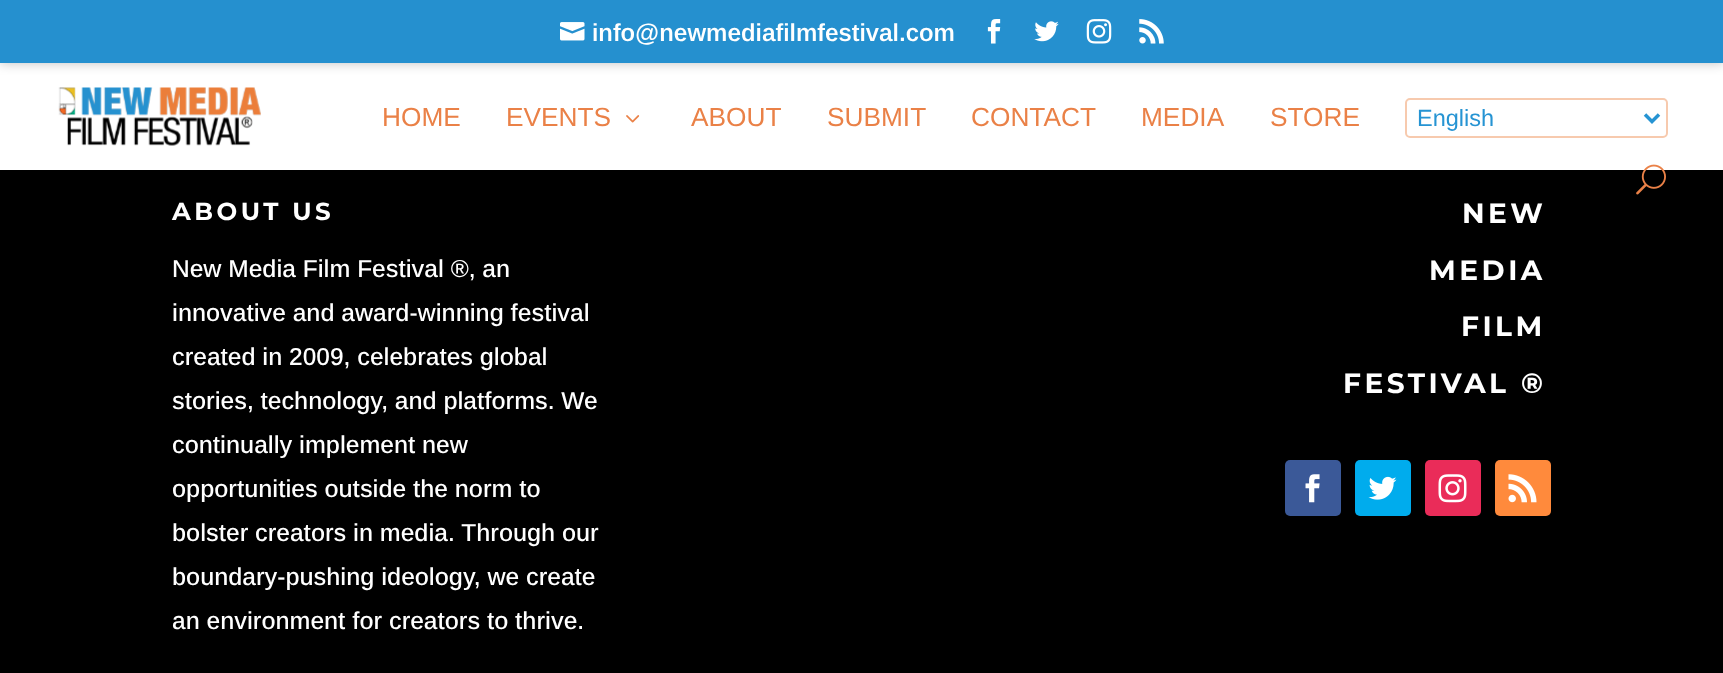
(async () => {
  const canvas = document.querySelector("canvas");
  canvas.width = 1723;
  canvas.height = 673;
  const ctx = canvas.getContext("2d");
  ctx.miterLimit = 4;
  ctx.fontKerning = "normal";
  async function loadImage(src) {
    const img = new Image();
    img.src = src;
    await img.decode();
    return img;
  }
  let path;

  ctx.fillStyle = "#000000";
  ctx.fillRect(0, 0, 1723, 673);
  ctx.fillStyle = "#ffffff";
  ctx.fillRect(0, 63, 1723, 107);
  ctx.fillStyle = "rgba(0, 0, 0, 0.25)";
  ctx.filter = "blur(6px)";
  ctx.beginPath();
  ctx.rect(0, 0, 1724, 63);
  ctx.fill();
  ctx.filter = "none";
  ctx.fillStyle = "#2590cf";
  ctx.fillRect(0, 0, 1723, 63);
  ctx.drawImage(await loadImage("img/1.png"), 560, 22, 25, 19);
  ctx.drawImage(await loadImage("img/2.png"), 987, 19, 14, 25);
  ctx.drawImage(await loadImage("img/3.png"), 1034, 21, 25, 21);
  ctx.drawImage(await loadImage("img/4.png"), 1086, 19, 26, 25);
  ctx.drawImage(await loadImage("img/5.png"), 1139, 19, 25, 25);
  ctx.drawImage(await loadImage("img/6.png"), 58, 87, 203, 59);
  ctx.drawImage(await loadImage("img/7.png"), 626, 115, 14, 8);
  ctx.beginPath();
  ctx.roundRect(1406, 99, 261, 38, 4);
  ctx.strokeStyle = "#f7caae";
  ctx.lineWidth = 2;
  ctx.stroke();
  path = new Path2D("M1645 114.5L1652 121.5L1659 114.5");
  ctx.strokeStyle = "#2694d3";
  ctx.lineWidth = 3.5;
  ctx.stroke(path);
  ctx.drawImage(await loadImage("img/8.png"), 1636, 164, 30, 31);
  ctx.fillStyle = "#3b5998";
  ctx.beginPath();
  ctx.roundRect(1285, 460, 56, 56, 5);
  ctx.fill();
  ctx.drawImage(await loadImage("img/9.png"), 1305, 474, 15, 29);
  ctx.fillStyle = "#00aced";
  ctx.beginPath();
  ctx.roundRect(1355, 460, 56, 56, 5);
  ctx.fill();
  ctx.drawImage(await loadImage("img/10.png"), 1368, 476, 29, 24);
  ctx.fillStyle = "#ea2c59";
  ctx.beginPath();
  ctx.roundRect(1425, 460, 56, 56, 5);
  ctx.fill();
  ctx.drawImage(await loadImage("img/11.png"), 1438, 474, 29, 29);
  ctx.fillStyle = "#ff8a3c";
  ctx.beginPath();
  ctx.roundRect(1495, 460, 56, 56, 5);
  ctx.fill();
  ctx.drawImage(await loadImage("img/12.png"), 1508, 474, 29, 29);
  ctx.font = "600 24.5px Arimo";
  ctx.fillStyle = "#ffffff";
  ctx.fillText("info@newmediafilmfestival.com", 592, 41);
  ctx.font = "26.25px Arimo";
  ctx.fillStyle = "#ea8147";
  for (const [text, x, y] of [
    ["HOME", 382, 126],
    ["EVENTS", 506, 126],
    ["ABOUT", 691, 126],
    ["SUBMIT", 827, 126],
    ["CONTACT", 971, 126],
    ["MEDIA", 1141, 126],
    ["STORE", 1270, 126],
  ]) {
    ctx.fillText(text, x, y);
  }
  ctx.font = "23.5px Arimo";
  ctx.fillStyle = "#2694d3";
  ctx.fillText("English", 1417, 126);
  ctx.letterSpacing = "3.5px";
  ctx.font = "bold 24.5px Montserrat";
  ctx.fillStyle = "#ffffff";
  ctx.fillText("ABOUT US", 172, 220);
  ctx.letterSpacing = "0px";
  ctx.font = "500 24.5px Arimo";
  for (const [text, x, y] of [
    ["New Media Film Festival ®, an", 172, 277],
    ["innovative and award-winning festival", 172, 321],
    ["created in 2009, celebrates global", 172, 365],
    ["stories, technology, and platforms. We", 172, 409],
    ["continually implement new", 172, 453],
    ["opportunities outside the norm to", 172, 497],
    ["bolster creators in media. Through our", 172, 541],
    ["boundary-pushing ideology, we create", 172, 585],
    ["an environment for creators to thrive.", 172, 629],
  ]) {
    ctx.fillText(text, x, y);
  }
  ctx.letterSpacing = "3.5px";
  ctx.font = "bold 28px Montserrat";
  for (const [text, x, y] of [
    ["NEW", 1462, 223],
    ["MEDIA", 1429, 280],
    ["FILM", 1461, 336],
    ["FESTIVAL ®", 1343, 393],
  ]) {
    ctx.fillText(text, x, y);
  }
})();
